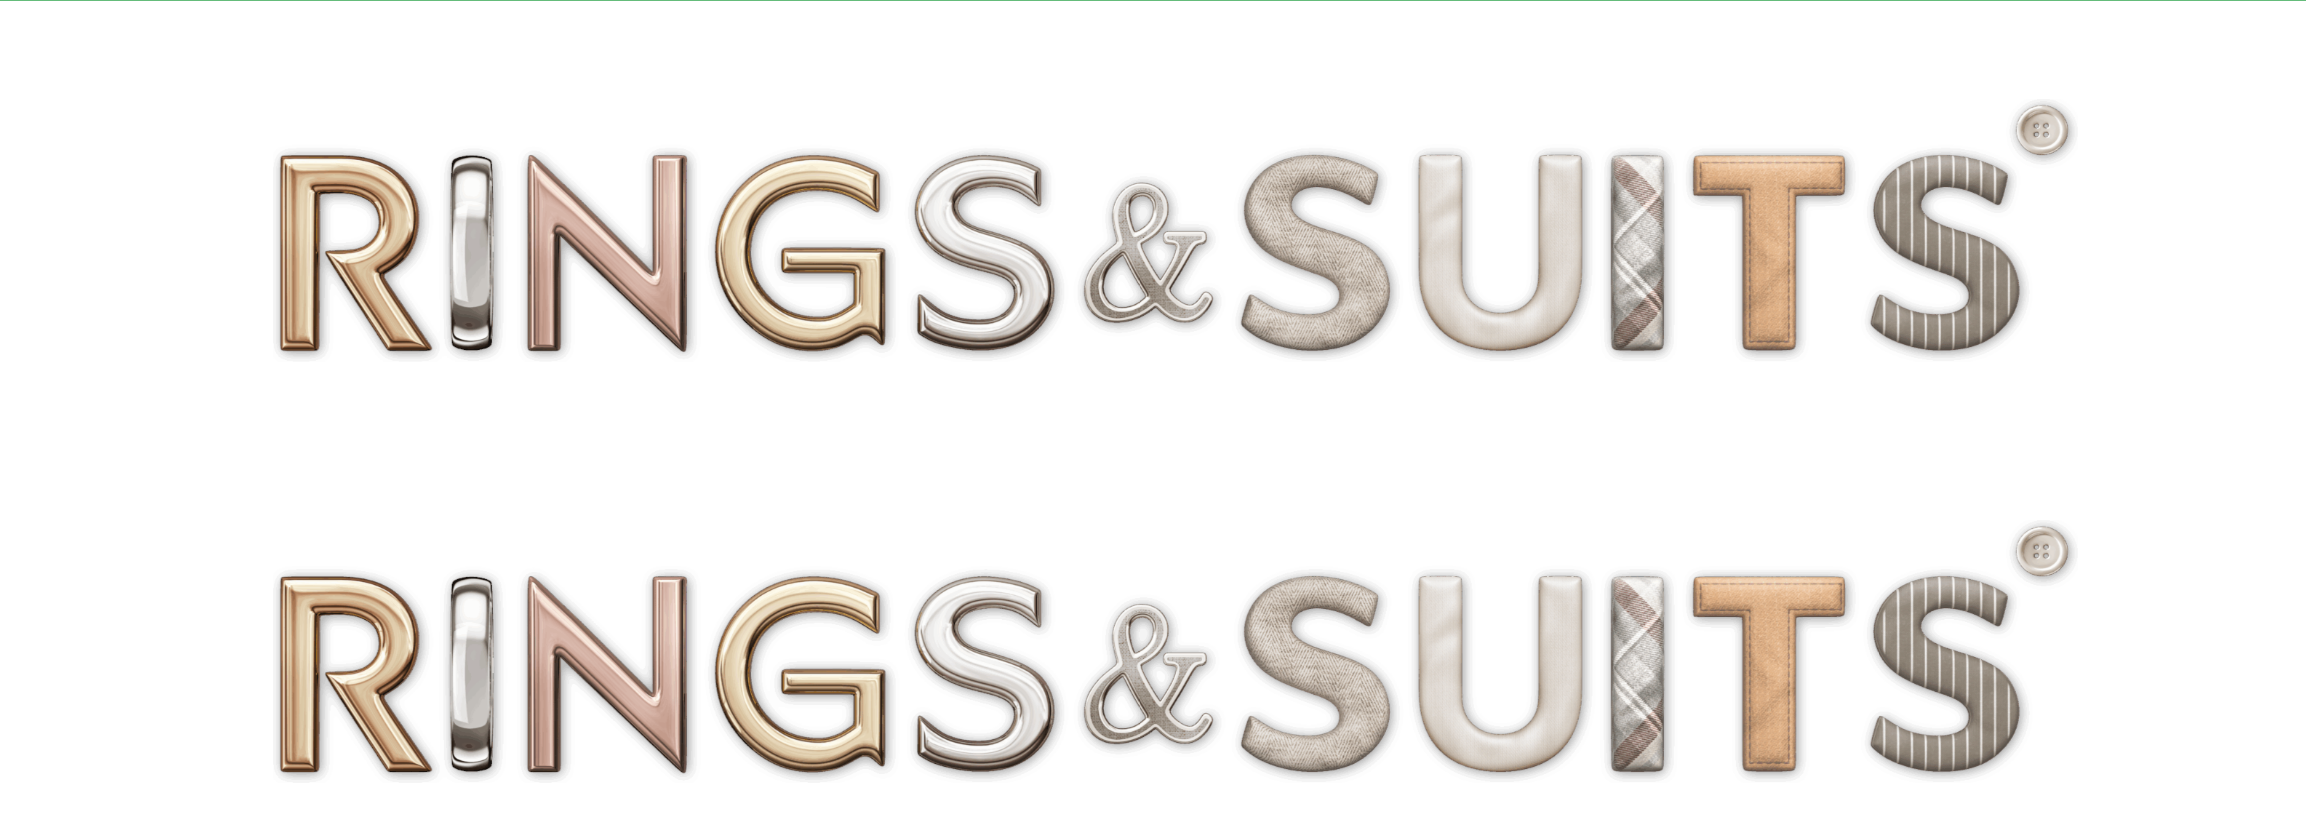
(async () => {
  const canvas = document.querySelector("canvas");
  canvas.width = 2306;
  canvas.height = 830;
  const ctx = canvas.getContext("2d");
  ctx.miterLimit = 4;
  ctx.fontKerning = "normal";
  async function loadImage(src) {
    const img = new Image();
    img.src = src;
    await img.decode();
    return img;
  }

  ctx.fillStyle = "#ffffff";
  ctx.fillRect(0, 0, 2306, 830);
  ctx.fillStyle = "#65bc7b";
  ctx.fillRect(0, 0, 2306, 1);
  ctx.drawImage(await loadImage("img/1.png"), 273, 99, 1805, 263);
  ctx.drawImage(await loadImage("img/2.png"), 273, 520, 1805, 263);
})();
